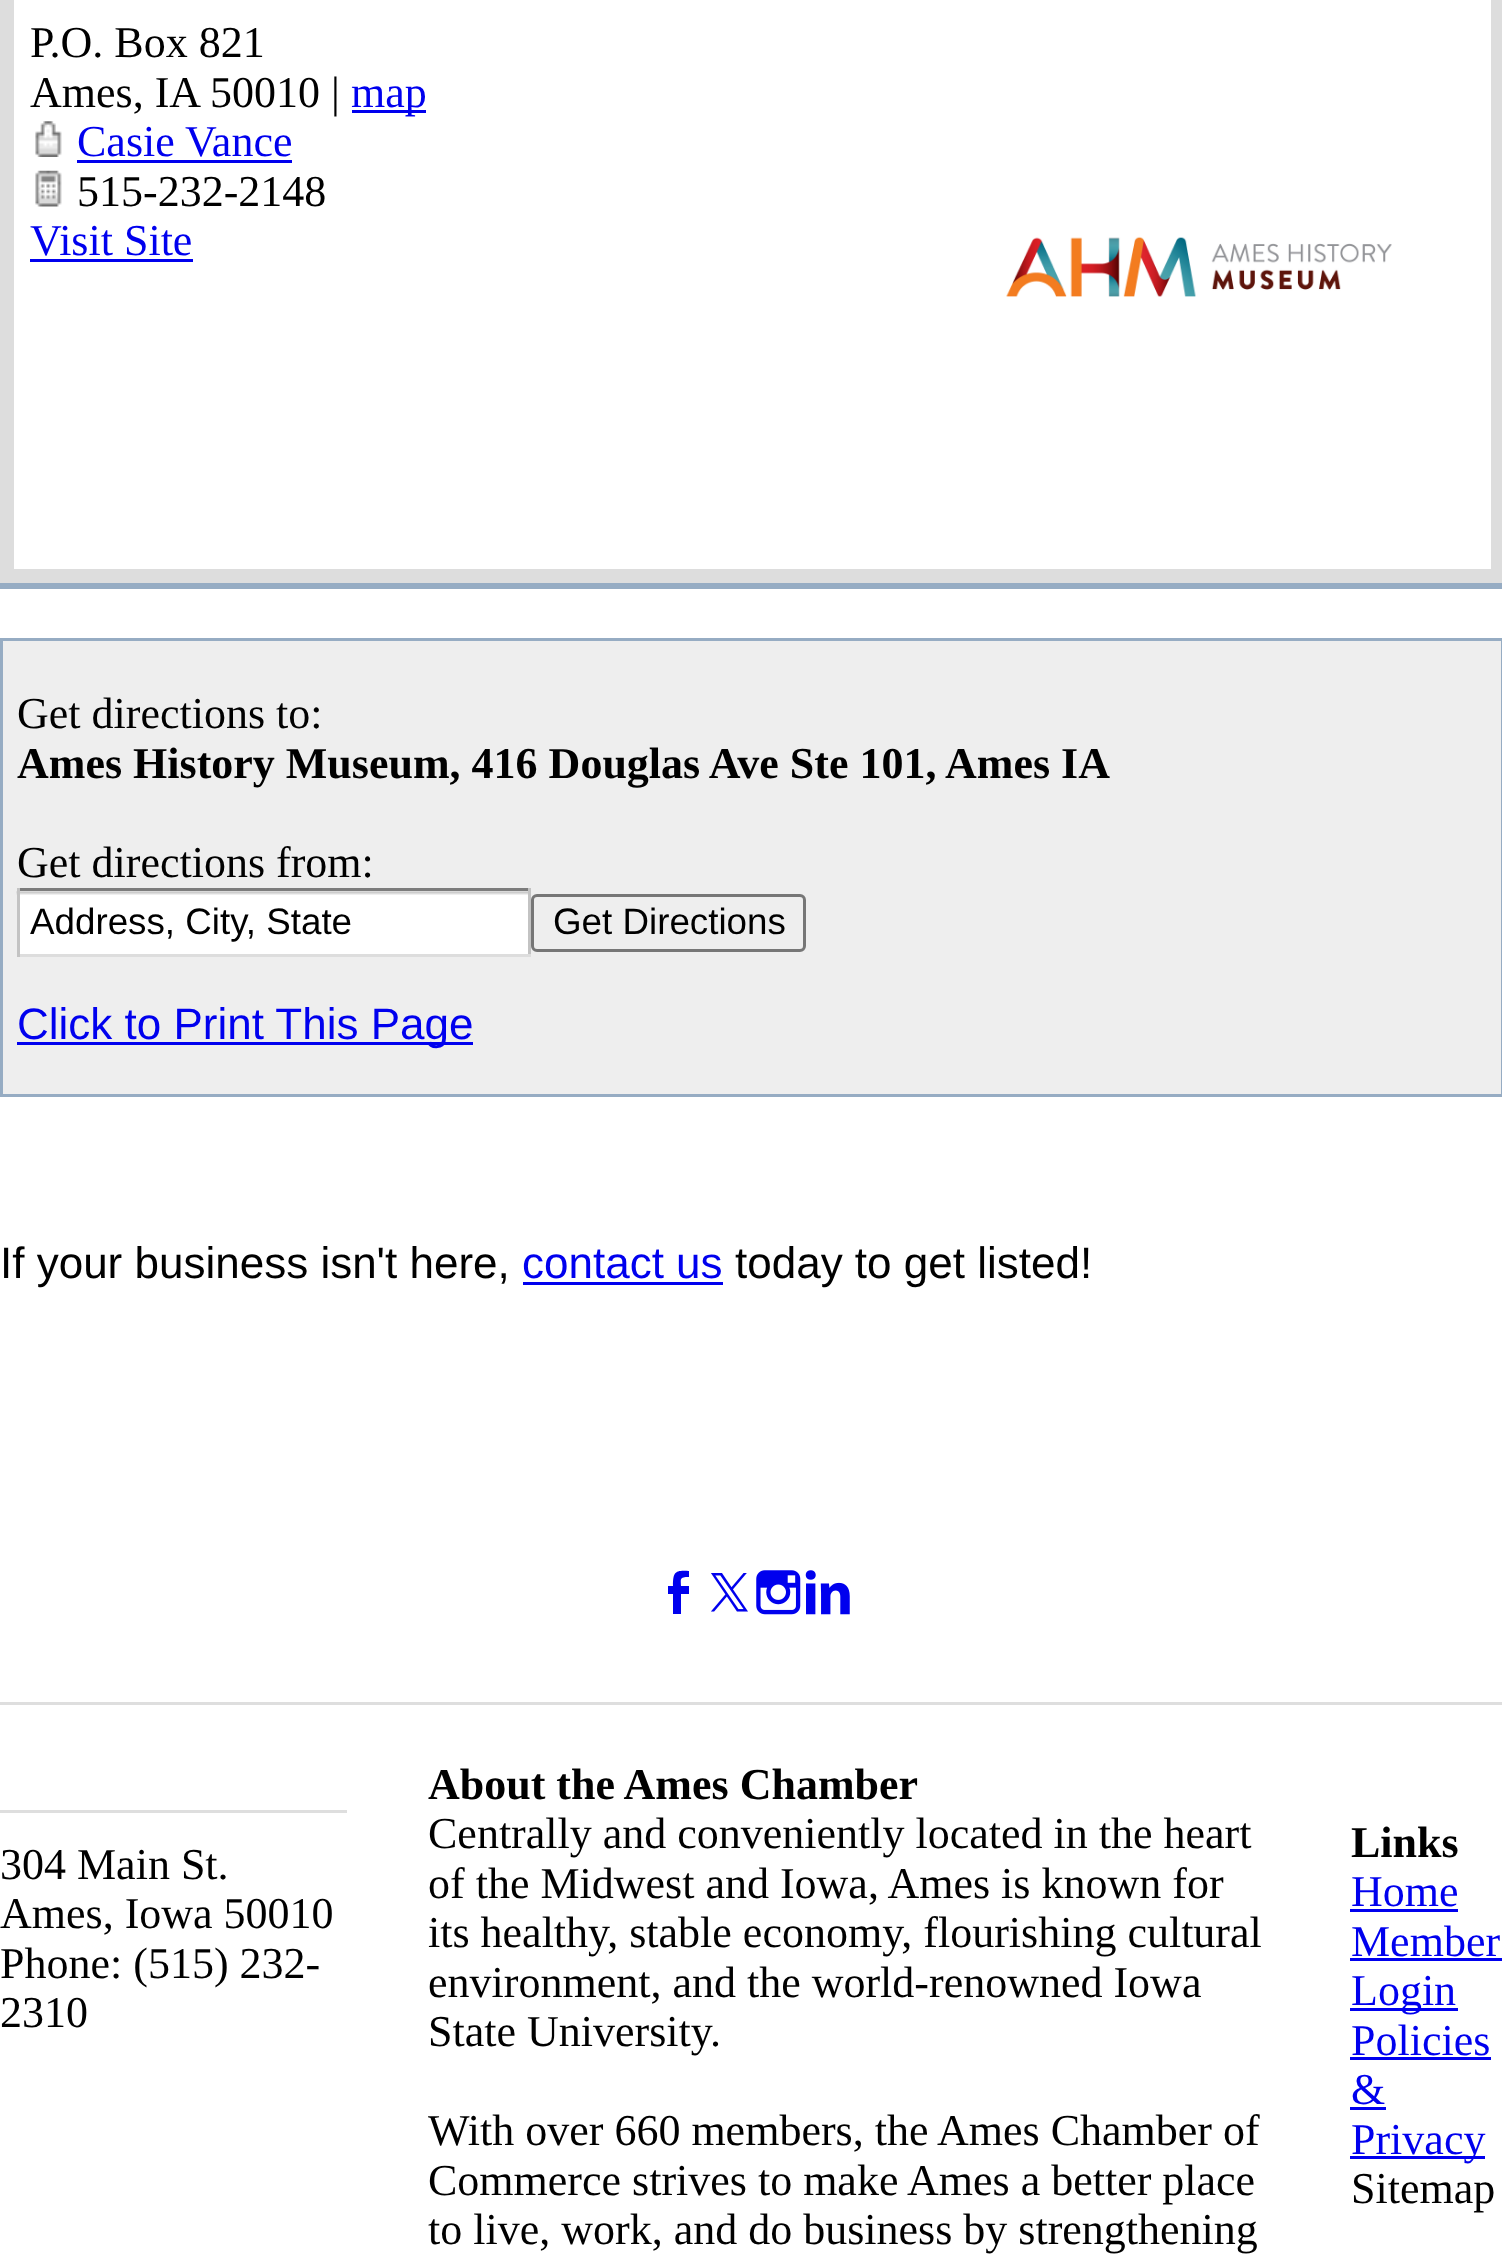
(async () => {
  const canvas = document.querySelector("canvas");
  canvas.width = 1502;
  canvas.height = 2256;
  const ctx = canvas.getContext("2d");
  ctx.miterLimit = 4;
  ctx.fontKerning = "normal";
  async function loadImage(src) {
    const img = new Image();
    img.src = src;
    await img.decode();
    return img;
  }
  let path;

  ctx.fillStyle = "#ffffff";
  ctx.fillRect(0, 0, 1502, 2256);
  for (const [x, y, w, h, color] of [
    [0, 0, 1502, 583, "#dddddd"],
    [14, 0, 1477, 569, "#ffffff"],
    [352, 110, 74, 3, "#0000ee"],
  ]) {
    ctx.fillStyle = color;
    ctx.fillRect(x, y, w, h);
  }
  ctx.drawImage(await loadImage("img/1.png"), 35, 121, 27, 36);
  ctx.fillRect(77, 160, 215, 3);
  ctx.drawImage(await loadImage("img/2.png"), 35, 170, 27, 37);
  ctx.fillRect(30, 259, 163, 3);
  ctx.drawImage(await loadImage("img/3.png"), 1006, 236, 386, 61);
  ctx.fillStyle = "#96acc3";
  ctx.fillRect(0, 583, 1502, 6);
  ctx.fillStyle = "#eeeeee";
  ctx.beginPath();
  ctx.rect(1.5, 639.5, 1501, 456);
  ctx.fill();
  ctx.strokeStyle = "#96acc3";
  ctx.lineWidth = 3;
  ctx.stroke();
  ctx.fillStyle = "#ffffff";
  ctx.fillRect(20, 891, 508, 63);
  ctx.drawImage(await loadImage("img/4.png"), 16, 891, 512, 4);
  for (const [x, y, w, h, color] of [
    [17, 888, 514, 3, "#7c7c7c"],
    [528, 888, 3, 69, "#c3c3c3"],
    [17, 954, 514, 3, "#dddddd"],
    [17, 888, 3, 69, "#c3c3c3"],
  ]) {
    ctx.fillStyle = color;
    ctx.fillRect(x, y, w, h);
  }
  ctx.beginPath();
  ctx.roundRect(532.5, 895.5, 272, 55, 4.5);
  ctx.strokeStyle = "#767676";
  ctx.stroke();
  ctx.fillStyle = "#0000ee";
  ctx.fillRect(17, 1042, 456, 3);
  ctx.fillRect(523, 1282, 200, 3);
  path = new Path2D("M673 1614V1594H668V1586H673C673 1572 675 1570 689 1571V1577C679 1577 681 1579 681 1586H689V1594H681V1614Z");
  ctx.fill(path);
  ctx.drawImage(await loadImage("img/5.png"), 711, 1573, 37, 39);
  ctx.drawImage(await loadImage("img/6.png"), 756, 1570, 45, 45);
  ctx.drawImage(await loadImage("img/7.png"), 805, 1570, 45, 45);
  for (const [x, y, w, h, color] of [
    [0, 1702, 1502, 3, "#dedede"],
    [0, 1810, 347, 3, "#dedede"],
    [1350, 1909, 108, 3, "#0000ee"],
    [1350, 1958, 152, 3, "#0000ee"],
    [1350, 2008, 108, 3, "#0000ee"],
    [1350, 2057, 141, 3, "#0000ee"],
    [1350, 2107, 36, 3, "#0000ee"],
    [1350, 2156, 135, 3, "#0000ee"],
  ]) {
    ctx.fillStyle = color;
    ctx.fillRect(x, y, w, h);
  }
  ctx.font = "44px Liberation Serif";
  ctx.fillStyle = "#000000";
  for (const [text, x, y] of [
    ["P.O. Box 821", 30, 57],
    ["Ames, IA", 30, 107],
    ["50010 |", 210, 107],
  ]) {
    ctx.fillText(text, x, y);
  }
  ctx.fillStyle = "#0000ee";
  ctx.fillText("map", 351, 107);
  ctx.fillText("Casie Vance", 77, 156);
  ctx.fillStyle = "#000000";
  ctx.fillText("515-232-2148", 77, 206);
  ctx.fillStyle = "#0000ee";
  ctx.fillText("Visit Site", 30, 255);
  ctx.fillStyle = "#000000";
  ctx.fillText("Get directions to:", 17, 728);
  ctx.font = "bold 44px Liberation Serif";
  ctx.fillText("Ames History Museum, 416 Douglas Ave Ste 101, Ames IA", 17, 778);
  ctx.font = "44px Liberation Serif";
  ctx.fillText("Get directions from:", 17, 877);
  ctx.font = "36.75px Liberation Sans";
  ctx.fillText("Address, City, State", 30, 934);
  ctx.fillText("Get Directions", 553, 934);
  ctx.font = "44px Liberation Sans";
  ctx.fillStyle = "#0000ee";
  ctx.fillText("Click to Print This Page", 17, 1039);
  ctx.fillStyle = "#000000";
  ctx.fillText("If your business isn't here,", 0, 1278);
  ctx.fillStyle = "#0000ee";
  ctx.fillText("contact us", 522, 1278);
  ctx.fillStyle = "#000000";
  ctx.fillText("today to get listed!", 735, 1278);
  ctx.font = "44px Liberation Serif";
  for (const [text, x, y] of [
    ["304 Main St.", 0, 1879],
    ["Ames, Iowa 50010", 0, 1928],
    ["Phone: (515) 232-", 0, 1978],
    ["2310", 0, 2027],
  ]) {
    ctx.fillText(text, x, y);
  }
  ctx.font = "bold 44px Liberation Serif";
  ctx.fillText("About the Ames Chamber", 428, 1799);
  ctx.font = "44px Liberation Serif";
  for (const [text, x, y] of [
    ["Centrally and conveniently located in the heart", 428, 1848],
    ["of the Midwest and Iowa, Ames is known for", 428, 1898],
    ["its healthy, stable economy, flourishing cultural", 428, 1947],
    ["environment, and the world-renowned Iowa", 428, 1997],
    ["State University.", 428, 2046],
    ["With over 660 members, the Ames Chamber of", 428, 2145],
    ["Commerce strives to make Ames a better place", 428, 2195],
    ["to live, work, and do business by strengthening", 428, 2244],
  ]) {
    ctx.fillText(text, x, y);
  }
  ctx.font = "bold 44px Liberation Serif";
  ctx.fillText("Links", 1351, 1857);
  ctx.font = "44px Liberation Serif";
  ctx.fillStyle = "#0000ee";
  for (const [text, x, y] of [
    ["Home", 1351, 1906],
    ["Member", 1351, 1956],
    ["Login", 1351, 2005],
    ["Policies", 1351, 2055],
    ["&", 1351, 2104],
    ["Privacy", 1351, 2154],
  ]) {
    ctx.fillText(text, x, y);
  }
  ctx.fillStyle = "#000000";
  ctx.fillText("Sitemap", 1351, 2203);
})();
